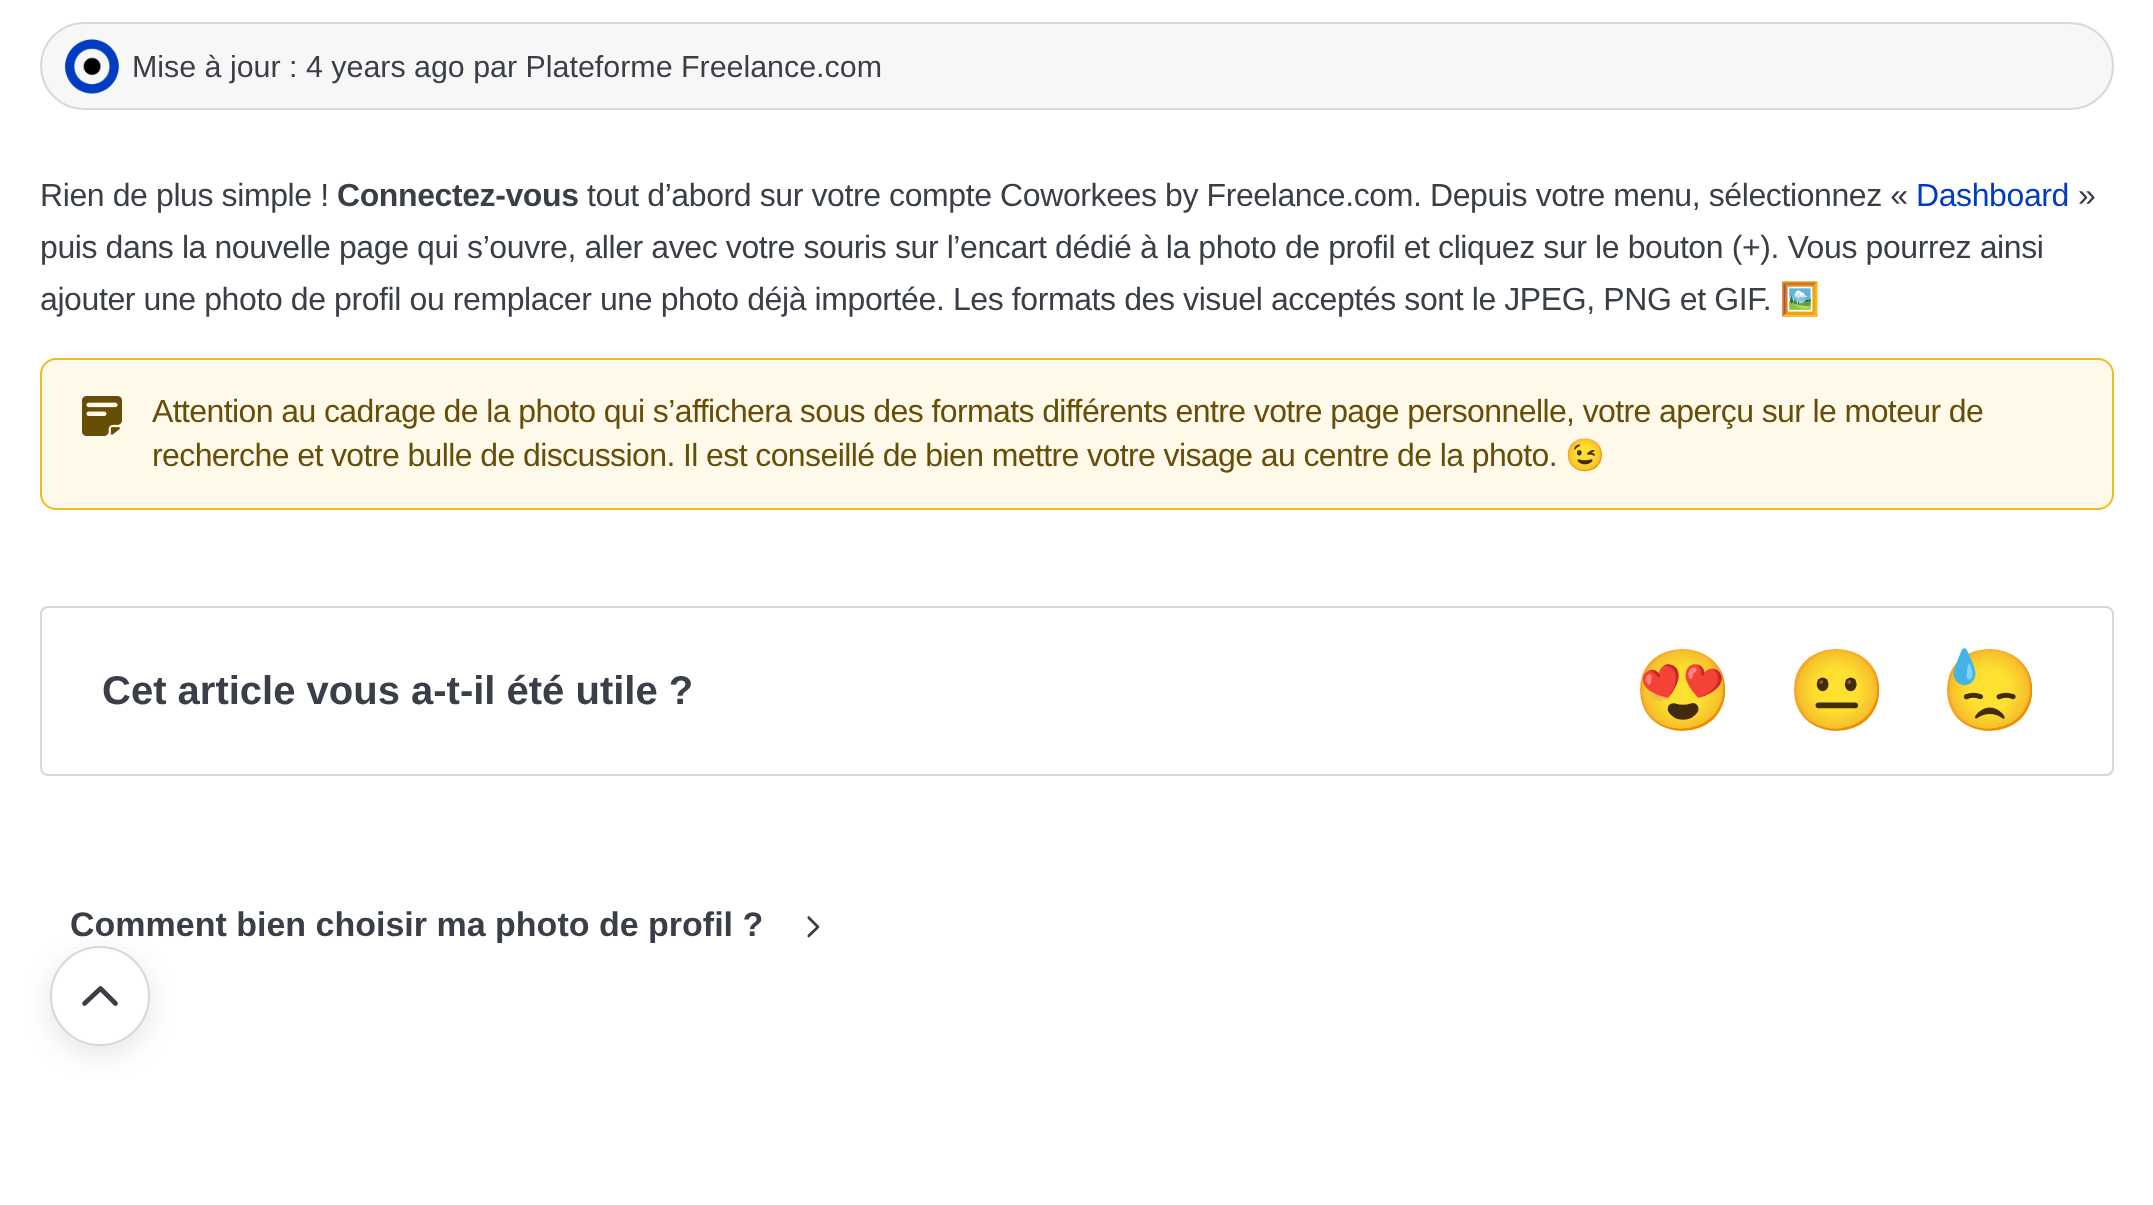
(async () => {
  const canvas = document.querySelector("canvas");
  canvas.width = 2153;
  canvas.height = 1205;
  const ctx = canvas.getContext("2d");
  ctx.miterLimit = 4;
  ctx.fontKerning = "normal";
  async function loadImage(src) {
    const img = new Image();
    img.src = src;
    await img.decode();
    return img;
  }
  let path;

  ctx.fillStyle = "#ffffff";
  ctx.fillRect(0, 0, 2153, 1205);
  ctx.fillStyle = "#f7f7f7";
  ctx.beginPath();
  ctx.roundRect(41, 23, 2072, 86, 43);
  ctx.fill();
  ctx.strokeStyle = "#d7d7d7";
  ctx.lineWidth = 2;
  ctx.stroke();
  ctx.drawImage(await loadImage("img/1.png"), 64, 39, 55, 55);
  ctx.fillStyle = "#fff9ea";
  ctx.beginPath();
  ctx.roundRect(41, 359, 2072, 150, 15);
  ctx.fill();
  ctx.strokeStyle = "#f2b920";
  ctx.stroke();
  ctx.drawImage(await loadImage("img/2.png"), 82, 396, 40, 40);
  ctx.beginPath();
  ctx.roundRect(41, 607, 2072, 168, 7);
  ctx.strokeStyle = "#d7d7d7";
  ctx.stroke();
  ctx.save();
  path = new Path2D("M819.5 914V938H807.5V914Z");
  ctx.clip(path);
  path = new Path2D("M808.5 917.5L818 927L808.5 936");
  ctx.strokeStyle = "#3a3e46";
  ctx.lineWidth = 2.8;
  ctx.lineCap = "round";
  ctx.lineJoin = "round";
  ctx.stroke(path);
  ctx.restore();
  ctx.fillStyle = "rgba(0, 0, 0, 0.1)";
  ctx.filter = "blur(14px)";
  ctx.beginPath();
  ctx.roundRect(50, 954, 100, 100, 50);
  ctx.fill();
  ctx.filter = "none";
  ctx.fillStyle = "#ffffff";
  ctx.beginPath();
  ctx.arc(100, 996, 49, 0, Math.PI * 2);
  ctx.fill();
  ctx.stroke();
  path = new Path2D("M84.5 1003.5L100.5 988.5L115.5 1003.5");
  ctx.strokeStyle = "#3a3e46";
  ctx.lineWidth = 4.6;
  ctx.lineCap = "round";
  ctx.lineJoin = "round";
  ctx.stroke(path);
  ctx.font = "30.4px Liberation Sans";
  ctx.fillStyle = "#3a3e46";
  ctx.fillText("Mise à jour : 4 years ago par Plateforme Freelance.com", 132, 77);
  ctx.letterSpacing = "-0.4px";
  ctx.font = "32px Liberation Sans";
  ctx.fillText("Rien de plus simple !", 40, 206);
  ctx.font = "bold 32px Liberation Sans";
  ctx.fillText("Connectez-vous", 337, 206);
  ctx.font = "32px Liberation Sans";
  ctx.fillText("tout d’abord sur votre compte Coworkees by Freelance.com. Depuis votre menu, sélectionnez «", 587, 206);
  ctx.fillStyle = "#003cc2";
  ctx.fillText("Dashboard", 1916, 206);
  ctx.fillStyle = "#3a3e46";
  for (const [text, x, y] of [
    ["»", 2078, 206],
    ["puis dans la nouvelle page qui s’ouvre, aller avec votre souris sur l’encart dédié à la photo de profil et cliquez sur le bouton (+). Vous pourrez ainsi", 40, 258],
    ["ajouter une photo de profil ou remplacer une photo déjà importée. Les formats des visuel acceptés sont le JPEG, PNG et GIF.", 40, 310],
  ]) {
    ctx.fillText(text, x, y);
  }
  ctx.font = "32px Noto Color Emoji";
  ctx.fillText("🖼️", 1780, 310);
  ctx.letterSpacing = "-0.6px";
  ctx.font = "32px Liberation Sans";
  ctx.fillStyle = "#664d08";
  ctx.fillText("Attention au cadrage de la photo qui s’affichera sous des formats différents entre votre page personnelle, votre aperçu sur le moteur de", 152, 422);
  ctx.fillText("recherche et votre bulle de discussion. Il est conseillé de bien mettre votre visage au centre de la photo.", 152, 466);
  ctx.font = "32px Noto Color Emoji";
  ctx.fillText("😉", 1565, 466);
  ctx.letterSpacing = "0px";
  ctx.font = "bold 40px Liberation Sans";
  ctx.fillStyle = "#3a3e46";
  ctx.fillText("Cet article vous a-t-il été utile ?", 102, 704);
  ctx.font = "80px Noto Color Emoji";
  ctx.fillStyle = "#000000";
  for (const [text, x, y] of [
    ["😍", 1633, 718],
    ["😐", 1787, 718],
    ["😓", 1940, 718],
  ]) {
    ctx.fillText(text, x, y);
  }
  ctx.font = "bold 34px Liberation Sans";
  ctx.fillStyle = "#3a3e46";
  ctx.fillText("Comment bien choisir ma photo de profil ?", 70, 936);
})();
